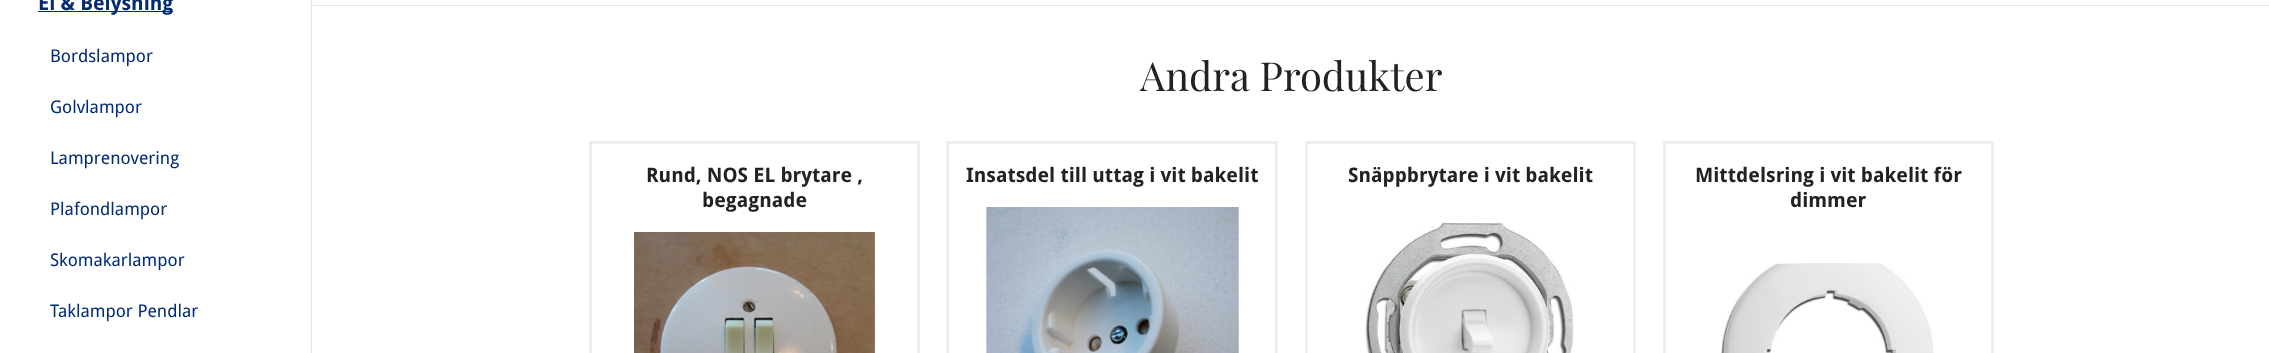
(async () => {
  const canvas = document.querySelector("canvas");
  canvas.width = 2269;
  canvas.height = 353;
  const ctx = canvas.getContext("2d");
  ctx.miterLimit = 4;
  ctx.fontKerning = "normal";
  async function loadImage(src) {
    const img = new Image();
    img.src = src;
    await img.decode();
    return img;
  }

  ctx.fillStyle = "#ffffff";
  ctx.fillRect(0, 0, 2269, 353);
  for (const [x, y, w, h, color] of [
    [311, 0, 1, 353, "#dee4eb"],
    [38, 11, 135, 1, "#012b74"],
    [313, 5, 1956, 1, "#dee4eb"],
  ]) {
    ctx.fillStyle = color;
    ctx.fillRect(x, y, w, h);
  }
  ctx.strokeStyle = "#ededed";
  ctx.lineWidth = 3;
  ctx.strokeRect(590.5, 142.5, 328, 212);
  ctx.drawImage(await loadImage("img/1.png"), 634, 232, 241, 121);
  ctx.strokeRect(947.5, 142.5, 329, 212);
  ctx.drawImage(await loadImage("img/2.png"), 985, 207, 254, 146);
  ctx.strokeRect(1306.5, 142.5, 328, 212);
  ctx.drawImage(await loadImage("img/3.png"), 1365, 222, 209, 131);
  ctx.strokeRect(1664.5, 142.5, 328, 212);
  ctx.drawImage(await loadImage("img/4.png"), 1721, 263, 213, 90);
  ctx.font = "bold 20px Droid Sans";
  ctx.fillStyle = "#012b74";
  ctx.fillText("El & Belysning", 38, 10);
  ctx.font = "17.5px Droid Sans";
  for (const [text, x, y] of [
    ["Bordslampor", 50, 62],
    ["Golvlampor", 50, 113],
    ["Lamprenovering", 50, 164],
    ["Plafondlampor", 50, 215],
    ["Skomakarlampor", 50, 266],
    ["Taklampor Pendlar", 50, 317],
  ]) {
    ctx.fillText(text, x, y);
  }
  ctx.font = "40px Playfair Display";
  ctx.fillStyle = "#222222";
  ctx.fillText("Andra Produkter", 1140, 91);
  ctx.font = "bold 20px Droid Sans";
  for (const [text, x, y] of [
    ["Rund, NOS EL brytare ,", 646, 182],
    ["begagnade", 702, 207],
    ["Insatsdel till uttag i vit bakelit", 966, 182],
    ["Snäppbrytare i vit bakelit", 1348, 182],
    ["Mittdelsring i vit bakelit för", 1695, 182],
    ["dimmer", 1790, 207],
  ]) {
    ctx.fillText(text, x, y);
  }
})();
